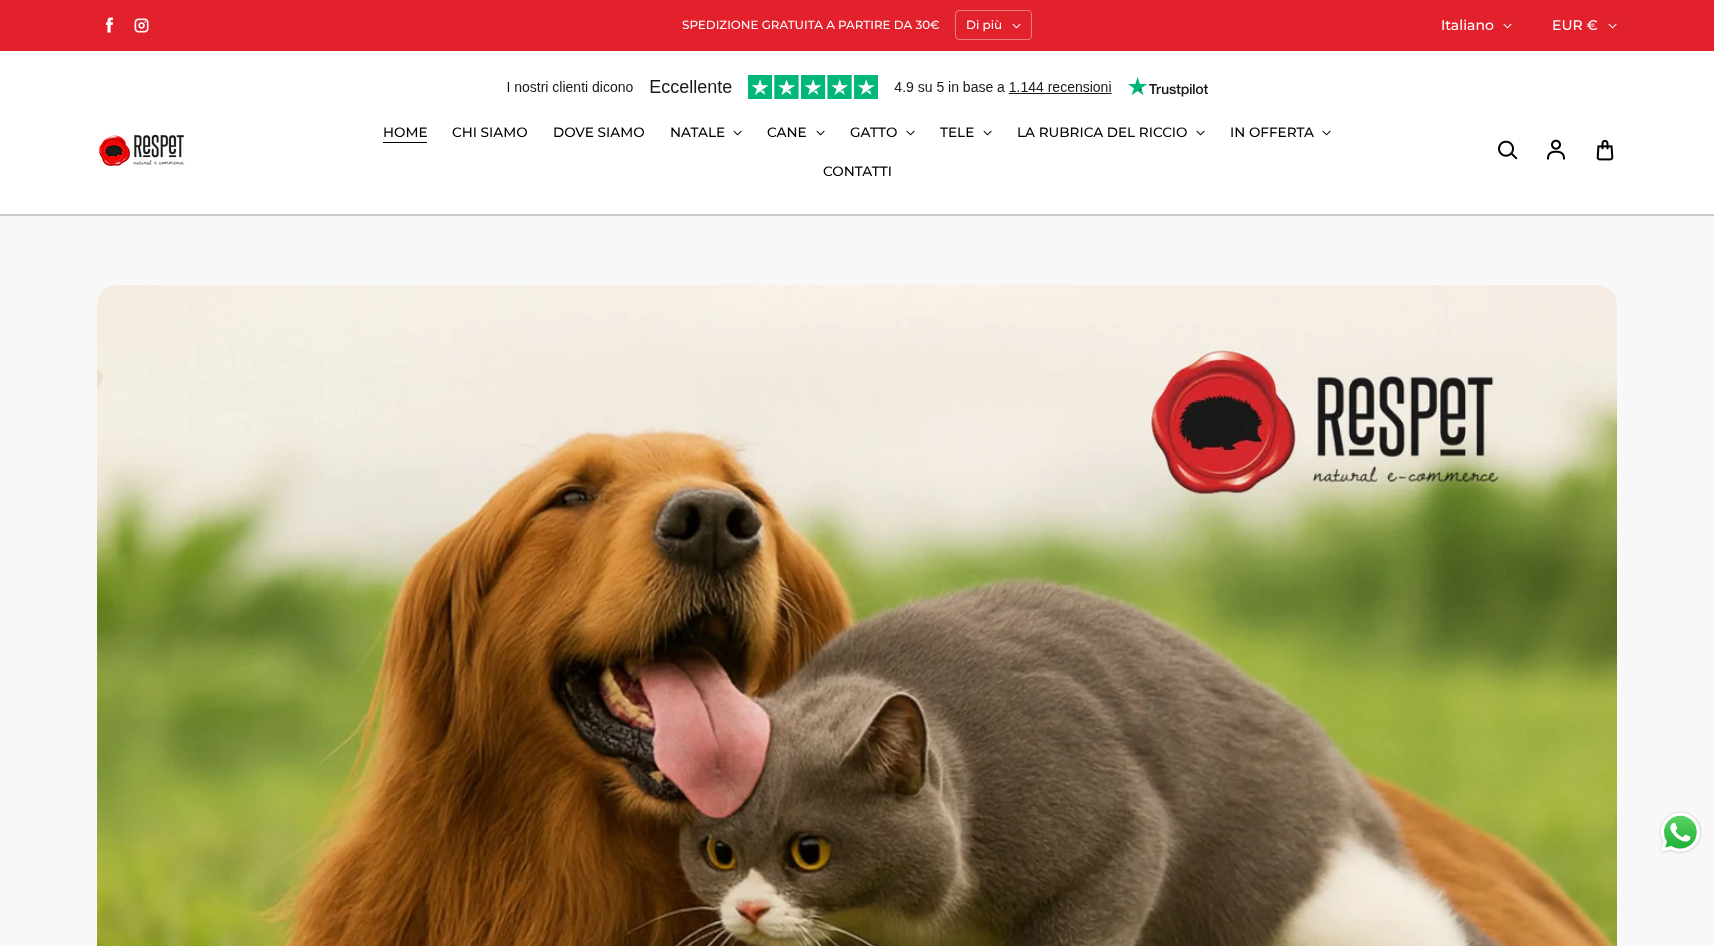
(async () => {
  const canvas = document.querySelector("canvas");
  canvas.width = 1714;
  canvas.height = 946;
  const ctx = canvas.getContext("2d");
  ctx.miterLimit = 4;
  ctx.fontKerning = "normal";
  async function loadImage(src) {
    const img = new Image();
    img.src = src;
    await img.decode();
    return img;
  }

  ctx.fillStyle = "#ffffff";
  ctx.fillRect(0, 0, 1714, 946);
  ctx.fillStyle = "#cccccc";
  ctx.fillRect(0, 214, 1714, 1);
  ctx.fillStyle = "#e3212c";
  ctx.fillRect(0, 0, 1714, 51);
  ctx.drawImage(await loadImage("img/1.png"), 106, 17, 7, 16);
  ctx.drawImage(await loadImage("img/2.png"), 134, 18, 15, 15);
  ctx.beginPath();
  ctx.roundRect(955.5, 10.5, 76, 29, 3.5);
  ctx.strokeStyle = "#ee7a80";
  ctx.stroke();
  ctx.drawImage(await loadImage("img/3.png"), 1012, 23, 9, 6);
  ctx.drawImage(await loadImage("img/3.png"), 1503, 23, 9, 6);
  ctx.drawImage(await loadImage("img/3.png"), 1608, 23, 9, 6);
  ctx.drawImage(await loadImage("img/4.png"), 507, 75, 701, 24);
  ctx.drawImage(await loadImage("img/5.png"), 98, 134, 87, 32);
  ctx.fillStyle = "#000000";
  ctx.fillRect(383, 142, 44, 1);
  ctx.drawImage(await loadImage("img/6.png"), 733, 130, 9, 6);
  ctx.drawImage(await loadImage("img/6.png"), 816, 130, 9, 6);
  ctx.drawImage(await loadImage("img/6.png"), 906, 130, 9, 6);
  ctx.drawImage(await loadImage("img/6.png"), 983, 130, 9, 6);
  ctx.drawImage(await loadImage("img/6.png"), 1196, 130, 9, 6);
  ctx.drawImage(await loadImage("img/6.png"), 1322, 130, 9, 6);
  ctx.drawImage(await loadImage("img/7.png"), 1498, 140, 20, 20);
  ctx.drawImage(await loadImage("img/8.png"), 1547, 139, 18, 21);
  ctx.drawImage(await loadImage("img/9.png"), 1596, 139, 18, 22);
  ctx.fillStyle = "#f8f8f8";
  ctx.fillRect(0, 216, 1714, 730);
  ctx.fillStyle = "#c6c6c6";
  ctx.fillRect(0, 215, 1714, 1);
  ctx.drawImage(await loadImage("img/10.png"), 97, 285, 1520, 661);
  ctx.drawImage(await loadImage("img/11.png"), 1659, 811, 43, 43);
  ctx.font = "500 11.9px Montserrat";
  ctx.fillStyle = "#ffffff";
  ctx.fillText("SPEDIZIONE GRATUITA A PARTIRE DA 30€", 682, 29);
  ctx.font = "500 12px Montserrat";
  ctx.fillText("Di più", 966, 29);
  ctx.font = "500 14px Montserrat";
  ctx.fillText("Italiano", 1441, 30);
  ctx.fillText("EUR €", 1552, 30);
  ctx.font = "500 13.6px Montserrat";
  ctx.fillStyle = "#000000";
  for (const [text, x, y] of [
    ["HOME", 383, 137],
    ["CHI SIAMO", 452, 137],
    ["DOVE SIAMO", 553, 137],
    ["NATALE", 670, 137],
    ["CANE", 767, 137],
    ["GATTO", 850, 137],
    ["TELE", 940, 137],
    ["LA RUBRICA DEL RICCIO", 1017, 137],
    ["IN OFFERTA", 1230, 137],
    ["CONTATTI", 823, 176],
  ]) {
    ctx.fillText(text, x, y);
  }
})();
